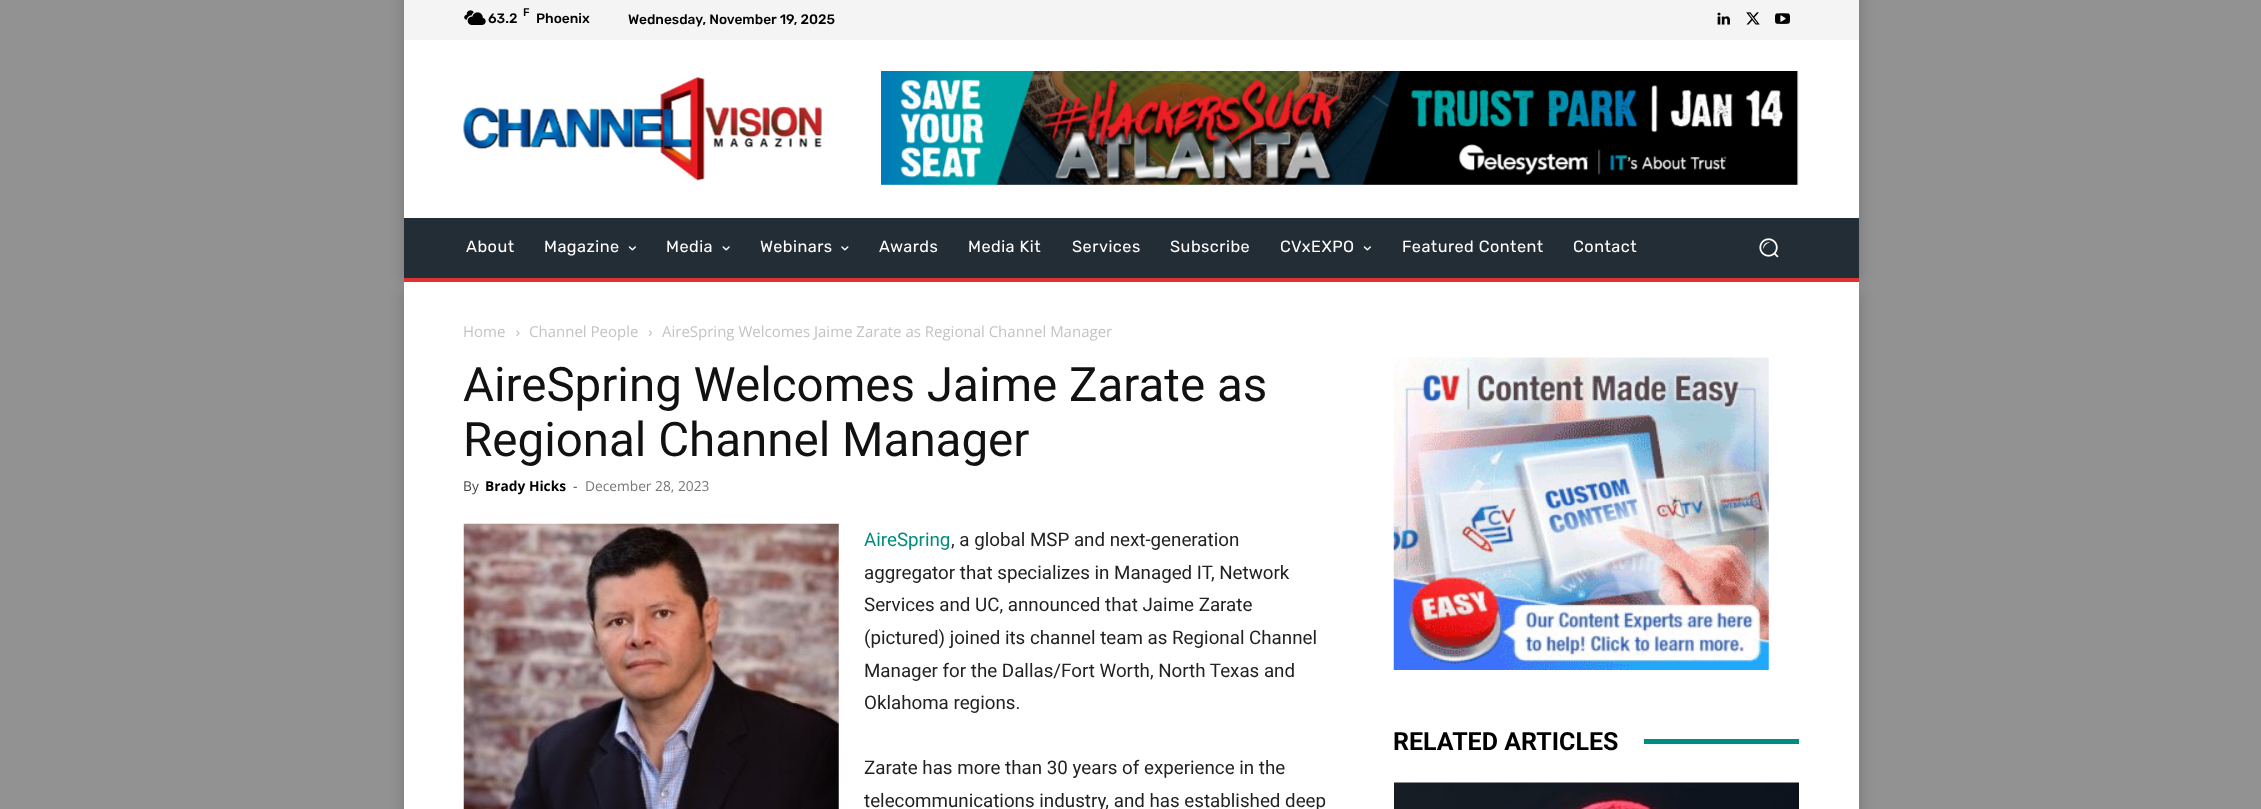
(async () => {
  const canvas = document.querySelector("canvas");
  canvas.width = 2261;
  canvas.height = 809;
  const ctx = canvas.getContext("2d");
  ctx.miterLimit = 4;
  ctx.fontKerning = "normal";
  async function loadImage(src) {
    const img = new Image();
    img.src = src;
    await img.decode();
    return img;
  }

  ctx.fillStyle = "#929292";
  ctx.fillRect(0, 0, 2261, 809);
  ctx.fillStyle = "rgba(0, 0, 0, 0.12)";
  ctx.filter = "blur(6px)";
  ctx.beginPath();
  ctx.rect(400, 290, 1463, 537);
  ctx.fill();
  ctx.filter = "none";
  ctx.fillStyle = "#ffffff";
  ctx.fillRect(404, 294, 1455, 515);
  ctx.fillStyle = "rgba(0, 0, 0, 0.12)";
  ctx.filter = "blur(6px)";
  ctx.beginPath();
  ctx.rect(400, -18, 1463, 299);
  ctx.fill();
  ctx.filter = "none";
  ctx.fillStyle = "#f4f4f4";
  ctx.fillRect(404, 0, 1455, 40);
  ctx.drawImage(await loadImage("img/1.png"), 464, 10, 22, 15);
  ctx.drawImage(await loadImage("img/2.png"), 1717, 12, 13, 13);
  ctx.drawImage(await loadImage("img/3.png"), 1746, 12, 14, 13);
  ctx.drawImage(await loadImage("img/4.png"), 1775, 13, 15, 11);
  ctx.fillStyle = "#ffffff";
  ctx.fillRect(404, 40, 1455, 254);
  ctx.drawImage(await loadImage("img/5.png"), 463, 77, 359, 104);
  ctx.drawImage(await loadImage("img/6.png"), 881, 71, 918, 114);
  ctx.fillStyle = "#232d35";
  ctx.fillRect(404, 218, 1455, 60);
  ctx.drawImage(await loadImage("img/7.png"), 628, 246, 8, 5);
  ctx.drawImage(await loadImage("img/8.png"), 722, 246, 8, 5);
  ctx.drawImage(await loadImage("img/9.png"), 841, 246, 8, 5);
  ctx.drawImage(await loadImage("img/7.png"), 1363, 246, 8, 5);
  ctx.drawImage(await loadImage("img/10.png"), 1759, 238, 20, 20);
  ctx.fillStyle = "#dd3333";
  ctx.fillRect(404, 278, 1455, 4);
  ctx.drawImage(await loadImage("img/11.png"), 516, 330, 4, 6);
  ctx.drawImage(await loadImage("img/12.png"), 648, 330, 4, 6);
  ctx.drawImage(await loadImage("img/13.png"), 463, 523, 376, 286);
  ctx.drawImage(await loadImage("img/14.png"), 1393, 357, 376, 313);
  ctx.fillStyle = "#008d7f";
  ctx.fillRect(1644, 739, 155, 5);
  ctx.drawImage(await loadImage("img/15.png"), 1394, 782, 405, 27);
  ctx.font = "500 11px Rubik";
  ctx.fillStyle = "#000000";
  ctx.fillText("F", 523, 16);
  ctx.font = "500 13.75px Rubik";
  for (const [text, x, y] of [
    ["63.2", 488, 23],
    ["Phoenix", 536, 23],
    ["Wednesday, November 19, 2025", 628, 24],
  ]) {
    ctx.fillText(text, x, y);
  }
  ctx.letterSpacing = "0.5px";
  ctx.font = "16.25px Rubik";
  ctx.fillStyle = "#ffffff";
  for (const [text, x, y] of [
    ["About", 466, 252],
    ["Magazine", 544, 252],
    ["Media", 666, 252],
    ["Webinars", 760, 252],
    ["Awards", 879, 252],
    ["Media Kit", 968, 252],
    ["Services", 1072, 252],
    ["Subscribe", 1170, 252],
    ["CVxEXPO", 1280, 252],
    ["Featured Content", 1402, 252],
    ["Contact", 1573, 252],
  ]) {
    ctx.fillText(text, x, y);
  }
  ctx.letterSpacing = "0px";
  ctx.font = "15px Open Sans";
  ctx.fillStyle = "#c3c3c3";
  for (const [text, x, y] of [
    ["Home", 463, 337],
    ["Channel People", 529, 337],
    ["AireSpring Welcomes Jaime Zarate as Regional Channel Manager", 662, 337],
  ]) {
    ctx.fillText(text, x, y);
  }
  ctx.font = "47.5px Roboto";
  ctx.fillStyle = "#111111";
  ctx.fillText("AireSpring Welcomes Jaime Zarate as", 463, 401);
  ctx.fillText("Regional Channel Manager", 463, 456);
  ctx.font = "13.75px Open Sans";
  ctx.fillStyle = "#444444";
  ctx.fillText("By", 463, 491);
  ctx.font = "bold 13.75px Open Sans";
  ctx.fillStyle = "#000000";
  ctx.fillText("Brady Hicks", 485, 491);
  ctx.font = "13.75px Open Sans";
  ctx.fillStyle = "#444444";
  ctx.fillText("-", 573, 491);
  ctx.fillStyle = "#767676";
  ctx.fillText("December 28, 2023", 585, 491);
  ctx.font = "18.75px Roboto";
  ctx.fillStyle = "#008d7f";
  ctx.fillText("AireSpring", 864, 546);
  ctx.fillStyle = "#222222";
  for (const [text, x, y] of [
    [", a global MSP and next-generation", 951, 546],
    ["aggregator that specializes in Managed IT, Network", 864, 579],
    ["Services and UC, announced that Jaime Zarate", 864, 611],
    ["(pictured) joined its channel team as Regional Channel", 864, 644],
    ["Manager for the Dallas/Fort Worth, North Texas and", 864, 677],
    ["Oklahoma regions.", 864, 709],
    ["Zarate has more than 30 years of experience in the", 864, 774],
    ["telecommunications industry, and has established deep", 864, 807],
  ]) {
    ctx.fillText(text, x, y);
  }
  ctx.font = "bold 25px Roboto";
  ctx.fillStyle = "#000000";
  ctx.fillText("RELATED ARTICLES", 1393, 750);
})();
